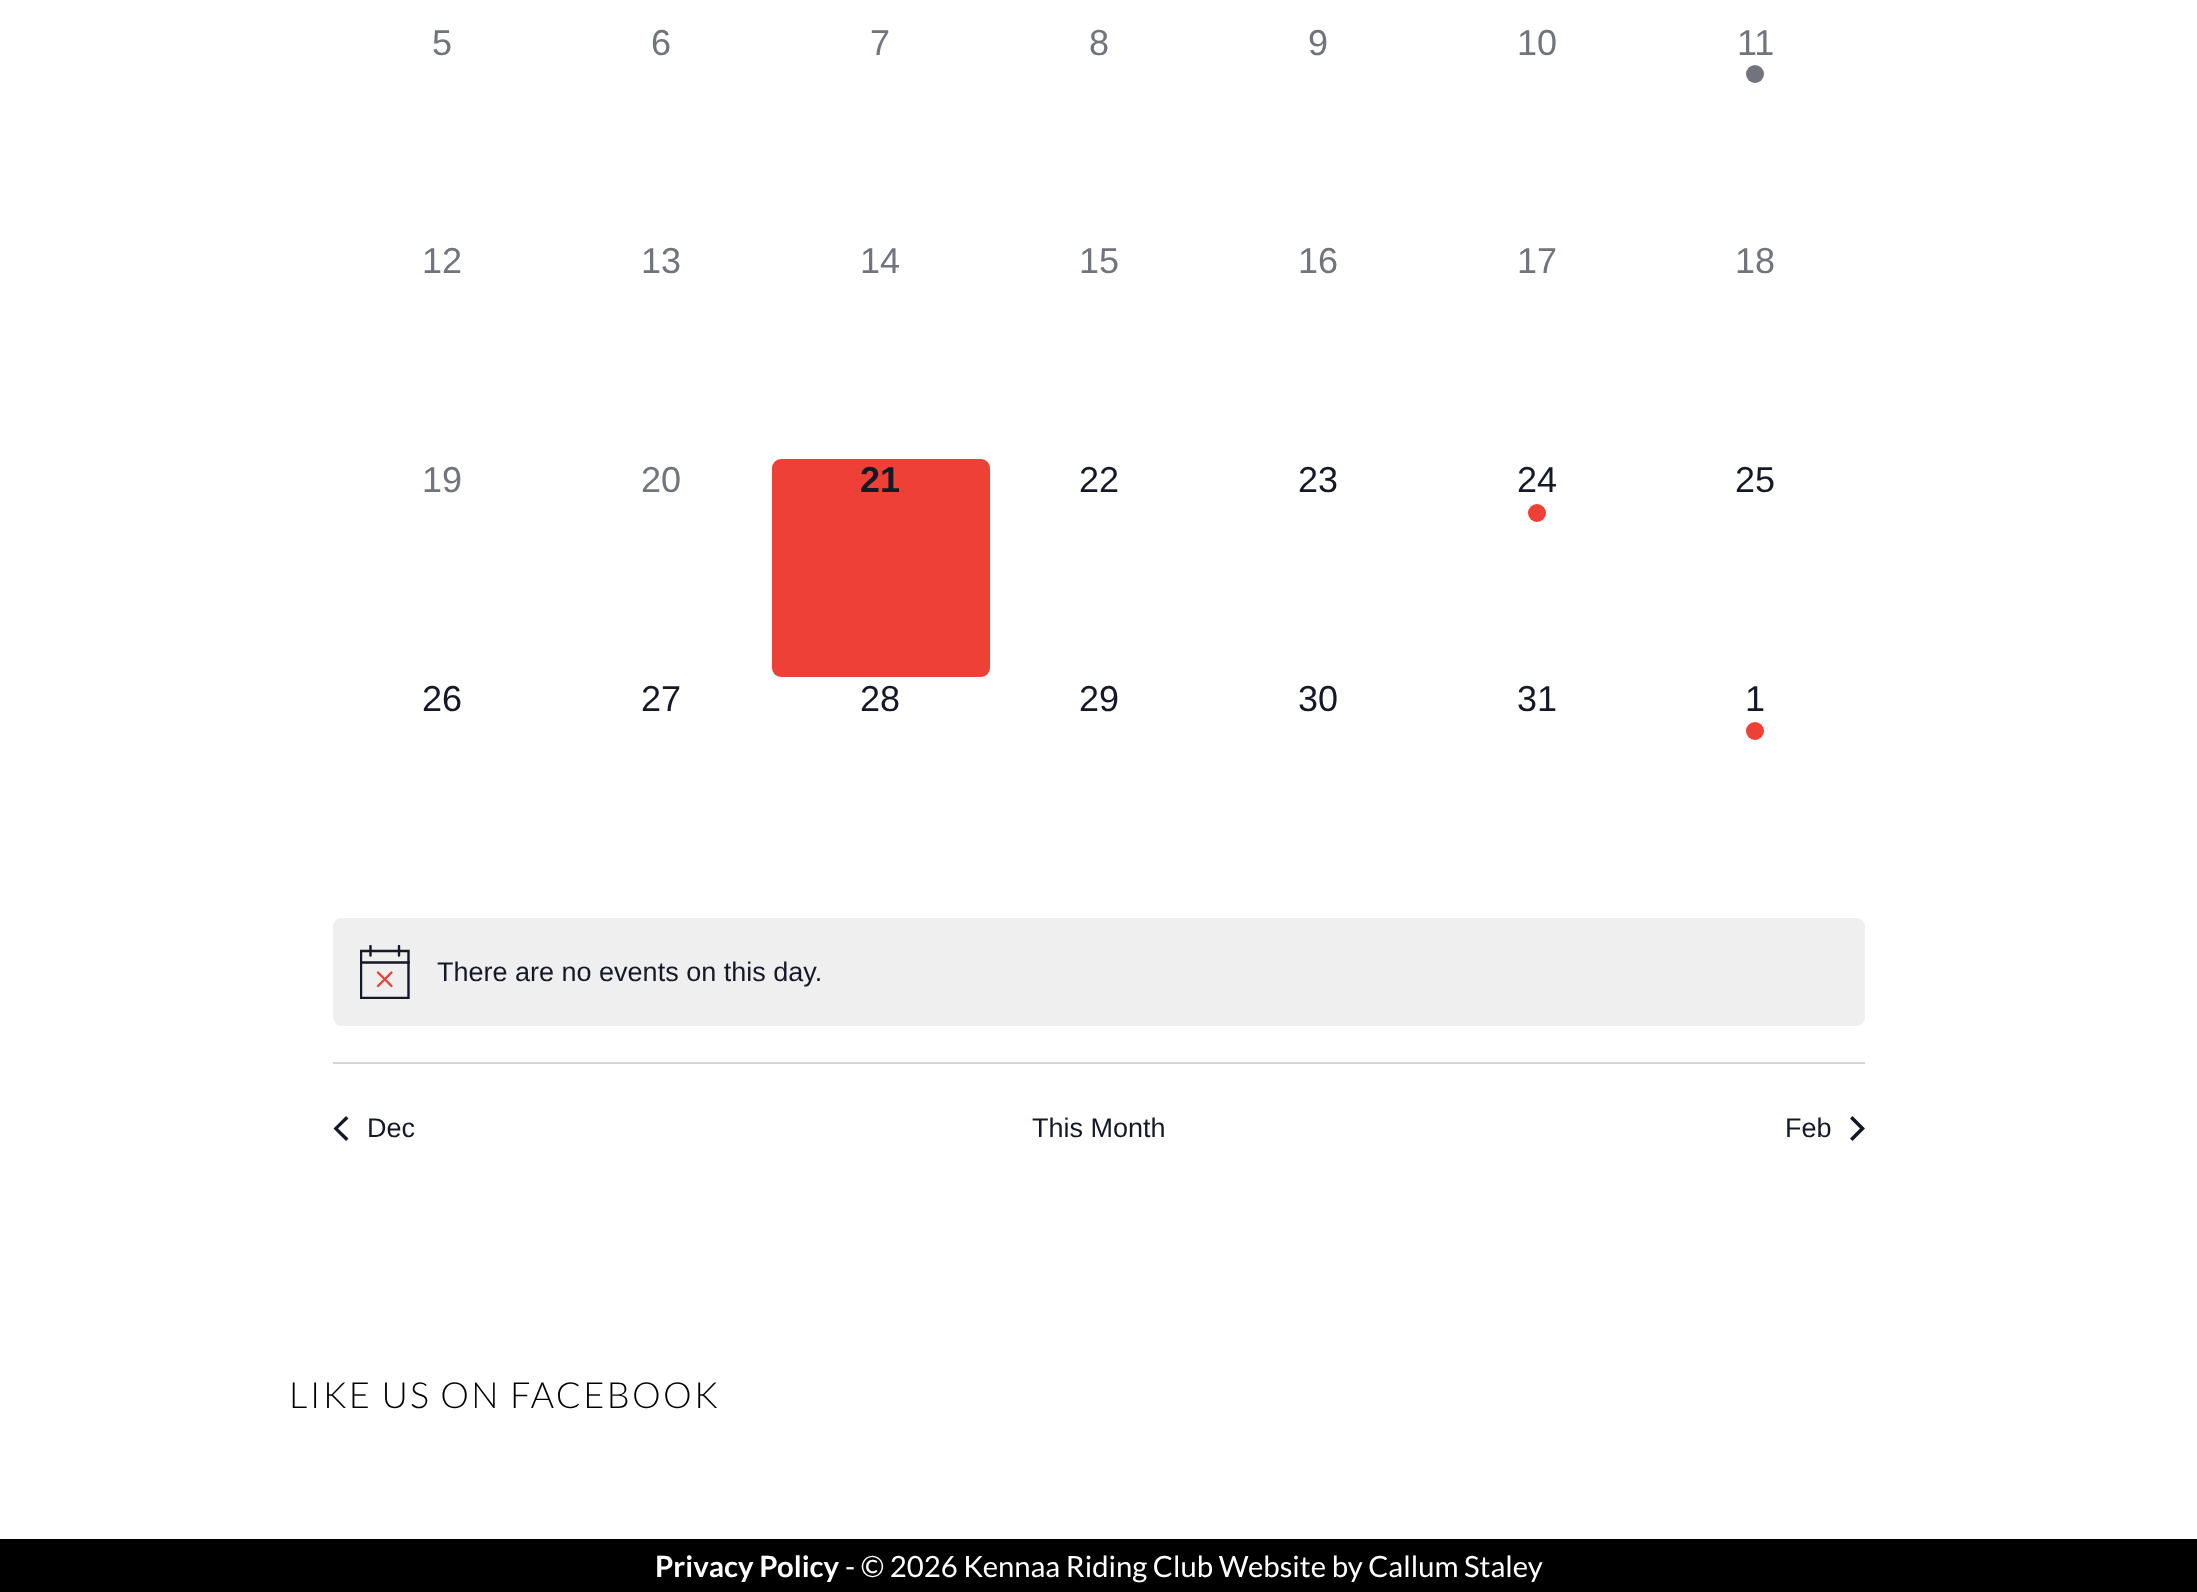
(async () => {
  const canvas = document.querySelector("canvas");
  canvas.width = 2197;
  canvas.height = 1592;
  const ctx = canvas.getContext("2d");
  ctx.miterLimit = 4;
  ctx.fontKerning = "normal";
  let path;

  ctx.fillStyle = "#ffffff";
  ctx.fillRect(0, 0, 2197, 1592);
  ctx.fillStyle = "#72747d";
  ctx.beginPath();
  ctx.arc(1755, 74, 9, 0, Math.PI * 2);
  ctx.fill();
  ctx.fillStyle = "#ee4037";
  ctx.beginPath();
  ctx.roundRect(772, 459, 218, 218, 9);
  ctx.fill();
  ctx.beginPath();
  ctx.arc(1537, 513, 9, 0, Math.PI * 2);
  ctx.fill();
  ctx.beginPath();
  ctx.arc(1755, 731, 9, 0, Math.PI * 2);
  ctx.fill();
  ctx.fillStyle = "#efeff0";
  ctx.beginPath();
  ctx.roundRect(333, 918, 1532, 108, 9);
  ctx.fill();
  ctx.save();
  ctx.beginPath();
  ctx.rect(360, 945, 50, 54);
  ctx.clip();
  path = new Path2D("M361 951H408.5V998H361Z");
  ctx.strokeStyle = "#141827";
  ctx.lineWidth = 2.4;
  ctx.stroke(path);
  ctx.restore();
  path = new Path2D("M378 972.5L391.5 986M391.5 972.5L378 986");
  ctx.strokeStyle = "#ee4037";
  ctx.lineWidth = 2.4;
  ctx.lineCap = "round";
  ctx.stroke(path);
  ctx.save();
  ctx.beginPath();
  ctx.rect(360, 945, 50, 54);
  ctx.clip();
  path = new Path2D("M370.5 946V955.5M399 946V955.5");
  ctx.strokeStyle = "#141827";
  ctx.stroke(path);
  path = new Path2D("M361 962.5H408.5");
  ctx.lineCap = "square";
  ctx.stroke(path);
  ctx.restore();
  ctx.fillStyle = "#d5d5d5";
  ctx.fillRect(333, 1062, 1532, 2);
  ctx.fillStyle = "#141827";
  path = new Path2D("M348.5 1138.5L346 1141L333.5 1128.5L346 1116L348.5 1118.5L338 1128.5Z");
  ctx.fill(path);
  path = new Path2D("M1850 1118.5L1852.5 1116L1865 1128.5L1852.5 1141L1850 1138.5L1860 1128.5Z");
  ctx.fill(path);
  ctx.fillStyle = "#000000";
  ctx.fillRect(0, 1539, 2197, 53);
  ctx.font = "36px Liberation Sans";
  ctx.fillStyle = "#72747d";
  for (const [text, x, y] of [
    ["5", 432, 55],
    ["6", 651, 55],
    ["7", 870, 55],
    ["8", 1089, 55],
    ["9", 1308, 55],
    ["10", 1517, 55],
    ["11", 1737, 55],
    ["12", 422, 273],
    ["13", 641, 273],
    ["14", 860, 273],
    ["15", 1079, 273],
    ["16", 1298, 273],
    ["17", 1517, 273],
    ["18", 1735, 273],
    ["19", 422, 492],
    ["20", 641, 492],
  ]) {
    ctx.fillText(text, x, y);
  }
  ctx.font = "bold 36px Liberation Sans";
  ctx.fillStyle = "#141827";
  ctx.fillText("21", 860, 492);
  ctx.font = "36px Liberation Sans";
  for (const [text, x, y] of [
    ["22", 1079, 492],
    ["23", 1298, 492],
    ["24", 1517, 492],
    ["25", 1735, 492],
    ["26", 422, 711],
    ["27", 641, 711],
    ["28", 860, 711],
    ["29", 1079, 711],
    ["30", 1298, 711],
    ["31", 1517, 711],
    ["1", 1745, 711],
  ]) {
    ctx.fillText(text, x, y);
  }
  ctx.font = "27px Liberation Sans";
  for (const [text, x, y] of [
    ["There are no events on this day.", 437, 981],
    ["Dec", 367, 1137],
    ["This Month", 1032, 1137],
    ["Feb", 1785, 1137],
  ]) {
    ctx.fillText(text, x, y);
  }
  ctx.letterSpacing = "2.25px";
  ctx.font = "300 36px Lato";
  ctx.fillStyle = "#000000";
  ctx.fillText("LIKE US ON FACEBOOK", 289, 1408);
  ctx.letterSpacing = "0px";
  ctx.font = "bold 29.25px Lato";
  ctx.fillStyle = "#ffffff";
  ctx.fillText("Privacy Policy", 655, 1577);
  ctx.font = "29.25px Lato";
  ctx.fillText("- © 2026 Kennaa Riding Club Website by Callum Staley", 845, 1577);
})();
